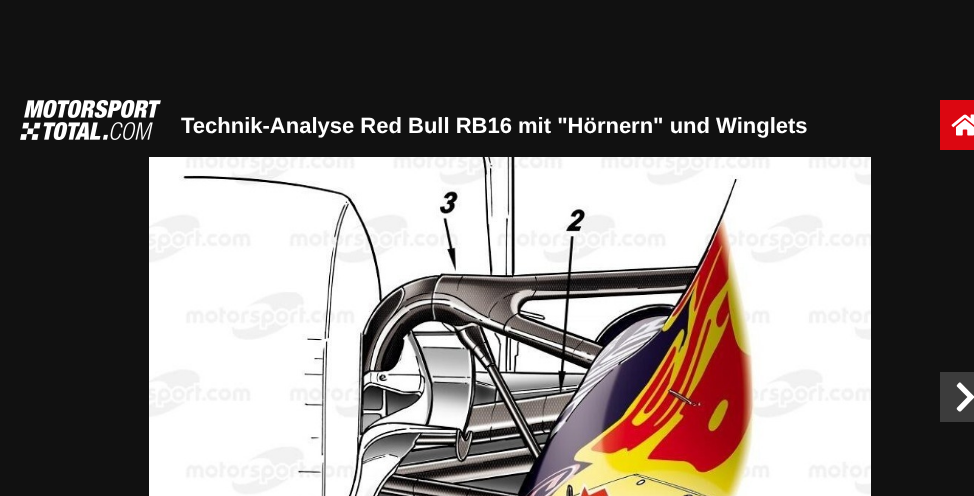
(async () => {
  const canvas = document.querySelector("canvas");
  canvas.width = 974;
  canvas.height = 496;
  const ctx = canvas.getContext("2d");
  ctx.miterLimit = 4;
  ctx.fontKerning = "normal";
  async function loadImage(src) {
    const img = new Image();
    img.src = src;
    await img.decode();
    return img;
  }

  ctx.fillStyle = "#111111";
  ctx.fillRect(0, 0, 974, 496);
  ctx.drawImage(await loadImage("img/1.png"), 20, 100, 141, 40);
  ctx.fillStyle = "#dc0711";
  ctx.fillRect(940, 100, 34, 50);
  ctx.drawImage(await loadImage("img/2.png"), 951, 114, 23, 22);
  ctx.drawImage(await loadImage("img/3.png"), 149, 157, 722, 339);
  ctx.fillStyle = "#3c3c3c";
  ctx.fillRect(940, 372, 34, 50);
  ctx.drawImage(await loadImage("img/4.png"), 956, 382, 18, 30);
  ctx.font = "bold 22px Liberation Sans";
  ctx.fillStyle = "#ffffff";
  ctx.fillText("Technik-Analyse Red Bull RB16 mit \"Hörnern\" und Winglets", 181, 133);
})();
